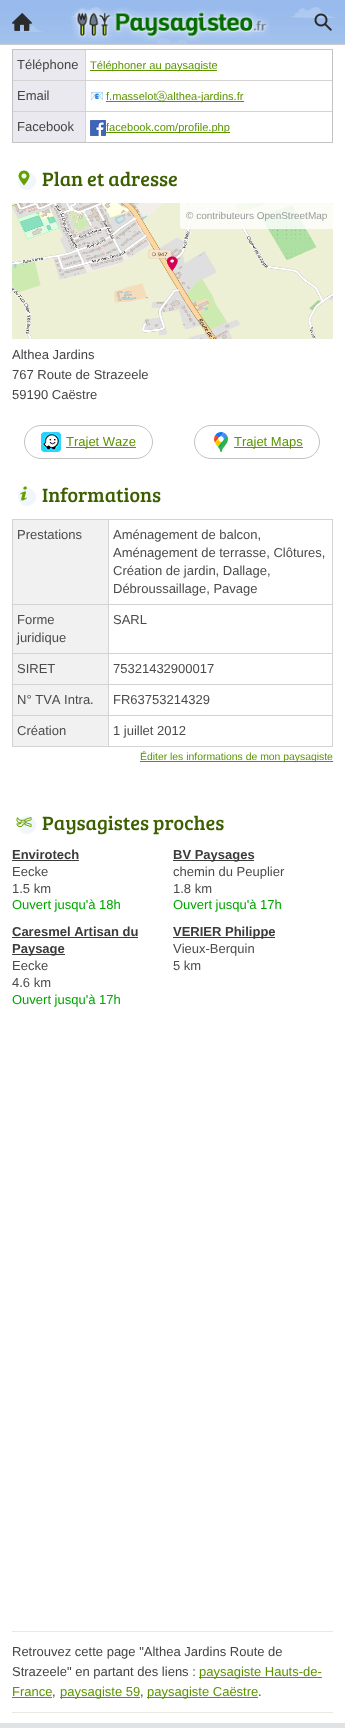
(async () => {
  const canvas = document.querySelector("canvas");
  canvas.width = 345;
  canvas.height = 1728;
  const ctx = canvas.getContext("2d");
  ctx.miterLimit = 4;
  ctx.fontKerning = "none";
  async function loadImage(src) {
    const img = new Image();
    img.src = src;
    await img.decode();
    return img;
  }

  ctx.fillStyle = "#e0e3e6";
  ctx.fillRect(0, 0, 345, 1728);
  ctx.fillStyle = "#ffffff";
  ctx.fillRect(0, 44, 345, 1679);
  ctx.fillStyle = "rgba(0, 0, 0, 0.2)";
  ctx.filter = "blur(0.5px)";
  ctx.beginPath();
  ctx.rect(0, 1, 345, 44);
  ctx.fill();
  ctx.filter = "none";
  ctx.drawImage(await loadImage("img/1.png"), 0, 0, 345, 44);
  ctx.drawImage(await loadImage("img/2.png"), 71, 7, 199, 35);
  ctx.drawImage(await loadImage("img/3.png"), 12, 13, 20, 18);
  ctx.drawImage(await loadImage("img/4.png"), 314, 13, 18, 18);
  for (const [x, y, w, h, color] of [
    [12, 1631, 321, 1, "#eae9df"],
    [12, 49, 321, 1, "#c3c3c3"],
    [332, 49, 1, 94, "#c3c3c3"],
    [12, 142, 321, 1, "#c3c3c3"],
    [12, 49, 1, 94, "#c3c3c3"],
    [13, 50, 72, 30, "#eae9ef"],
    [85, 80, 247, 1, "#d3d3d3"],
    [85, 111, 247, 1, "#d3d3d3"],
    [85, 111, 1, 31, "#d3d3d3"],
    [13, 111, 73, 1, "#d3d3d3"],
    [85, 80, 1, 32, "#d3d3d3"],
    [13, 80, 73, 1, "#d3d3d3"],
    [85, 50, 1, 31, "#d3d3d3"],
    [90, 70, 127, 1, "#5a9500"],
    [13, 81, 72, 30, "#eae9ef"],
    [106, 101, 138, 1, "#5a9500"],
    [13, 112, 72, 30, "#eae9ef"],
  ]) {
    ctx.fillStyle = color;
    ctx.fillRect(x, y, w, h);
  }
  ctx.drawImage(await loadImage("img/5.png"), 90, 120, 16, 16);
  ctx.fillStyle = "#5a9500";
  ctx.fillRect(106, 132, 124, 1);
  ctx.drawImage(await loadImage("img/6.png"), 18, 170, 18, 20);
  ctx.drawImage(await loadImage("img/7.png"), 12, 203, 321, 136);
  ctx.fillStyle = "rgba(255, 255, 255, 0.8)";
  ctx.beginPath();
  ctx.roundRect(180, 203, 153, 26, [0, 0, 0, 3]);
  ctx.fill();
  ctx.beginPath();
  ctx.roundRect(24.5, 425.5, 128, 33, 16.5);
  ctx.strokeStyle = "#c3c3c3";
  ctx.stroke();
  ctx.drawImage(await loadImage("img/8.png"), 41, 432, 20, 20);
  ctx.fillStyle = "#5a9500";
  ctx.fillRect(66, 447, 70, 1);
  ctx.beginPath();
  ctx.roundRect(194.5, 425.5, 125, 33, 16.5);
  ctx.stroke();
  ctx.drawImage(await loadImage("img/9.png"), 214, 432, 14, 20);
  ctx.fillRect(234, 447, 69, 1);
  ctx.drawImage(await loadImage("img/10.png"), 18, 486, 18, 20);
  for (const [x, y, w, h, color] of [
    [13, 520, 95, 84, "#f1f1f1"],
    [108, 519, 225, 1, "#d3d3d3"],
    [108, 604, 225, 1, "#d3d3d3"],
    [108, 653, 225, 1, "#d3d3d3"],
    [108, 684, 225, 1, "#d3d3d3"],
    [108, 715, 225, 1, "#d3d3d3"],
    [332, 715, 1, 32, "#d3d3d3"],
    [108, 746, 225, 1, "#d3d3d3"],
    [108, 715, 1, 32, "#d3d3d3"],
    [12, 715, 97, 1, "#d3d3d3"],
    [108, 684, 1, 32, "#d3d3d3"],
    [12, 684, 97, 1, "#d3d3d3"],
    [108, 653, 1, 32, "#d3d3d3"],
    [12, 653, 97, 1, "#d3d3d3"],
    [108, 604, 1, 50, "#d3d3d3"],
    [12, 604, 97, 1, "#d3d3d3"],
    [108, 519, 1, 86, "#d3d3d3"],
    [12, 519, 97, 1, "#d3d3d3"],
    [12, 746, 97, 1, "#d3d3d3"],
    [12, 715, 1, 32, "#d3d3d3"],
    [12, 684, 1, 32, "#d3d3d3"],
    [12, 653, 1, 32, "#d3d3d3"],
    [12, 604, 1, 50, "#d3d3d3"],
    [12, 519, 1, 86, "#d3d3d3"],
    [332, 684, 1, 32, "#d3d3d3"],
    [332, 653, 1, 32, "#d3d3d3"],
    [332, 604, 1, 50, "#d3d3d3"],
    [332, 519, 1, 86, "#d3d3d3"],
    [13, 605, 95, 48, "#f1f1f1"],
    [13, 654, 95, 30, "#f1f1f1"],
    [13, 685, 95, 30, "#f1f1f1"],
    [13, 716, 95, 30, "#f1f1f1"],
    [140, 761, 193, 1, "#5a9500"],
  ]) {
    ctx.fillStyle = color;
    ctx.fillRect(x, y, w, h);
  }
  ctx.drawImage(await loadImage("img/11.png"), 16, 816, 20, 18);
  for (const [x, y, w, h, color] of [
    [12, 860, 67, 1, "#3b3b3b"],
    [173, 860, 81, 1, "#3b3b3b"],
    [12, 937, 126, 1, "#3b3b3b"],
    [12, 954, 53, 1, "#3b3b3b"],
    [173, 937, 102, 1, "#3b3b3b"],
    [12, 1712, 321, 1, "#eae9df"],
    [199, 1677, 123, 1, "#5a9500"],
    [12, 1697, 40, 1, "#5a9500"],
    [60, 1697, 80, 1, "#5a9500"],
    [147, 1697, 111, 1, "#5a9500"],
  ]) {
    ctx.fillStyle = color;
    ctx.fillRect(x, y, w, h);
  }
  ctx.font = "13px Liberation Sans";
  ctx.fillStyle = "#444444";
  ctx.fillText("Téléphone", 17, 69);
  ctx.font = "11.1px Liberation Sans";
  ctx.fillStyle = "#5a9500";
  ctx.fillText("Téléphoner au paysagiste", 90, 69);
  ctx.font = "13px Liberation Sans";
  ctx.fillStyle = "#444444";
  ctx.fillText("Email", 17, 100);
  ctx.font = "11.1px Noto Color Emoji";
  ctx.fillStyle = "#5a9500";
  ctx.fillText("📧", 90, 100);
  ctx.font = "11.1px Liberation Sans";
  ctx.fillText("f.masselot", 106, 100);
  ctx.font = "500 11.1px WenQuanYi Zen Hei";
  ctx.fillText("ⓐ", 156, 100);
  ctx.font = "11.1px Liberation Sans";
  ctx.fillText("althea-jardins.fr", 167, 100);
  ctx.font = "13px Liberation Sans";
  ctx.fillStyle = "#444444";
  ctx.fillText("Facebook", 17, 131);
  ctx.font = "11.1px Liberation Sans";
  ctx.fillStyle = "#5a9500";
  ctx.fillText("facebook.com/profile.php", 106, 131);
  ctx.font = "20px Bree Serif";
  ctx.fillStyle = "#3c5f00";
  ctx.fillText("Plan et adresse", 42, 186);
  ctx.font = "10px Liberation Sans";
  ctx.fillStyle = "#999999";
  ctx.fillText("© contributeurs OpenStreetMap", 186, 219);
  ctx.font = "13px Liberation Sans";
  ctx.fillStyle = "#444444";
  for (const [text, x, y] of [
    ["Althea Jardins", 12, 359],
    ["767 Route de Strazeele", 12, 379],
    ["59190 Caëstre", 12, 399],
  ]) {
    ctx.fillText(text, x, y);
  }
  ctx.fillStyle = "#5a9500";
  ctx.fillText("Trajet Waze", 66, 446);
  ctx.fillText("Trajet Maps", 234, 446);
  ctx.font = "20px Bree Serif";
  ctx.fillStyle = "#3c5f00";
  ctx.fillText("Informations", 42, 502);
  ctx.font = "13px Liberation Sans";
  ctx.fillStyle = "#4b4b4b";
  for (const [text, x, y] of [
    ["Prestations", 17, 539],
    ["Aménagement de balcon,", 113, 539],
    ["Aménagement de terrasse, Clôtures,", 113, 557],
    ["Création de jardin, Dallage,", 113, 575],
    ["Débroussaillage, Pavage", 113, 593],
    ["Forme", 17, 624],
    ["juridique", 17, 642],
    ["SARL", 113, 624],
    ["SIRET", 17, 673],
    ["75321432900017", 113, 673],
    ["N° TVA Intra.", 17, 704],
    ["FR63753214329", 113, 704],
    ["Création", 17, 735],
    ["1 juillet 2012", 113, 735],
  ]) {
    ctx.fillText(text, x, y);
  }
  ctx.font = "10.4px Liberation Sans";
  ctx.fillStyle = "#5a9500";
  ctx.fillText("Éditer les informations de mon paysagiste", 140, 760);
  ctx.font = "20px Bree Serif";
  ctx.fillStyle = "#3c5f00";
  ctx.fillText("Paysagistes proches", 42, 830);
  ctx.font = "bold 13px Liberation Sans";
  ctx.fillStyle = "#3b3b3b";
  ctx.fillText("Envirotech", 12, 859);
  ctx.font = "13px Liberation Sans";
  ctx.fillStyle = "#4b4b4b";
  ctx.fillText("Eecke", 12, 876);
  ctx.fillText("1.5 km", 12, 893);
  ctx.fillStyle = "#00a500";
  ctx.fillText("Ouvert jusqu'à 18h", 12, 909);
  ctx.font = "bold 13px Liberation Sans";
  ctx.fillStyle = "#3b3b3b";
  ctx.fillText("BV Paysages", 173, 859);
  ctx.font = "13px Liberation Sans";
  ctx.fillStyle = "#4b4b4b";
  ctx.fillText("chemin du Peuplier", 173, 876);
  ctx.fillText("1.8 km", 173, 893);
  ctx.fillStyle = "#00a500";
  ctx.fillText("Ouvert jusqu'à 17h", 173, 909);
  ctx.font = "bold 13px Liberation Sans";
  ctx.fillStyle = "#3b3b3b";
  ctx.fillText("Caresmel Artisan du", 12, 936);
  ctx.fillText("Paysage", 12, 953);
  ctx.font = "13px Liberation Sans";
  ctx.fillStyle = "#4b4b4b";
  ctx.fillText("Eecke", 12, 970);
  ctx.fillText("4.6 km", 12, 987);
  ctx.fillStyle = "#00a500";
  ctx.fillText("Ouvert jusqu'à 17h", 12, 1004);
  ctx.font = "bold 13px Liberation Sans";
  ctx.fillStyle = "#3b3b3b";
  ctx.fillText("VERIER Philippe", 173, 936);
  ctx.font = "13px Liberation Sans";
  ctx.fillStyle = "#4b4b4b";
  ctx.fillText("Vieux-Berquin", 173, 953);
  ctx.fillText("5 km", 173, 970);
  ctx.fillStyle = "#444444";
  ctx.fillText("Retrouvez cette page \"Althea Jardins Route de", 12, 1656);
  ctx.fillText("Strazeele\" en partant des liens :", 12, 1676);
  ctx.fillStyle = "#5a9500";
  ctx.fillText("paysagiste Hauts-de-", 199, 1676);
  ctx.fillText("France", 12, 1696);
  ctx.fillStyle = "#444444";
  ctx.fillText(",", 52, 1696);
  ctx.fillStyle = "#5a9500";
  ctx.fillText("paysagiste 59", 60, 1696);
  ctx.fillStyle = "#444444";
  ctx.fillText(",", 140, 1696);
  ctx.fillStyle = "#5a9500";
  ctx.fillText("paysagiste Caëstre", 147, 1696);
  ctx.fillStyle = "#444444";
  ctx.fillText(".", 258, 1696);
})();
